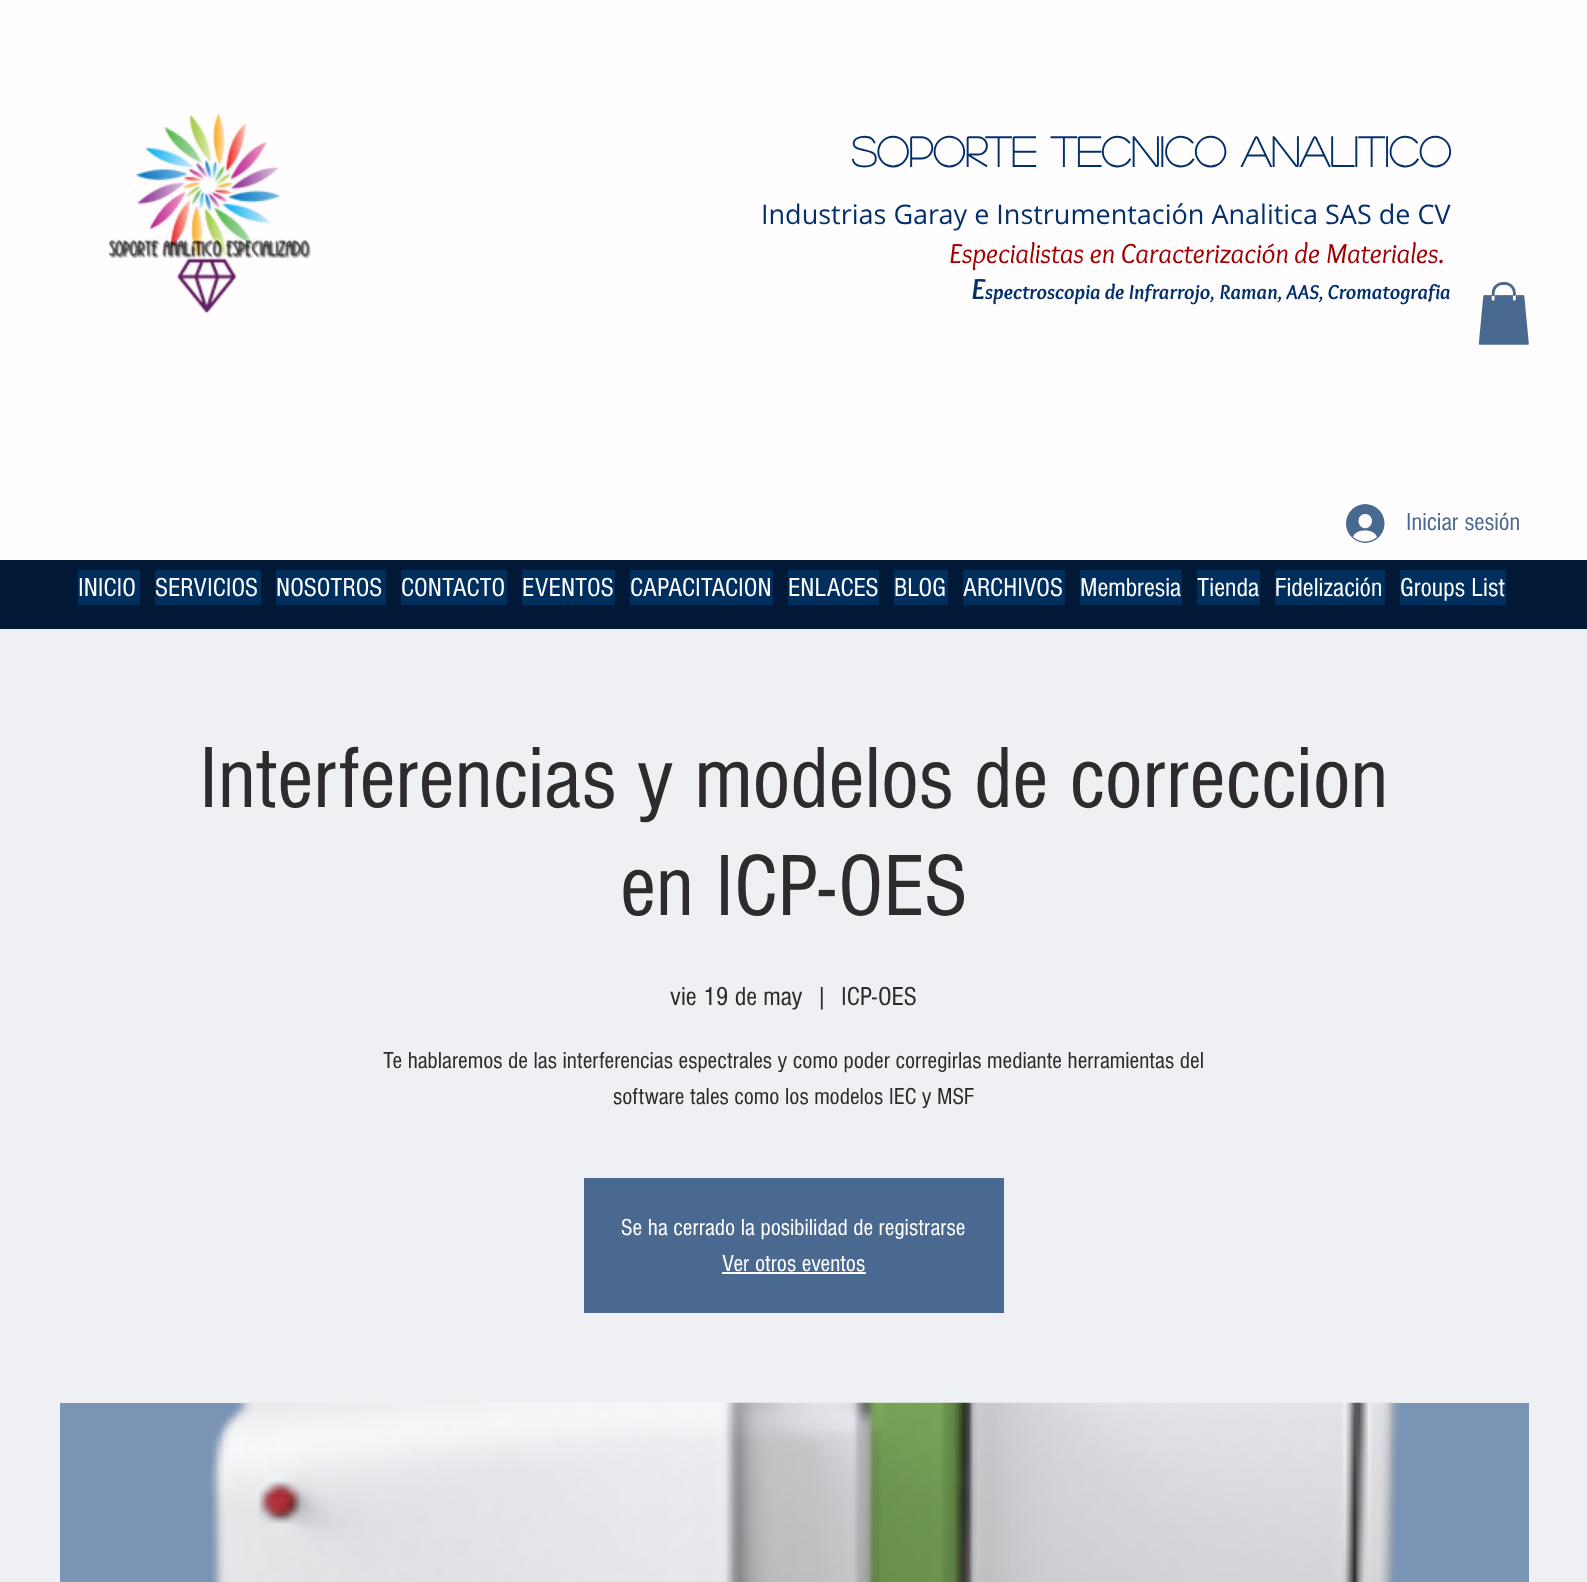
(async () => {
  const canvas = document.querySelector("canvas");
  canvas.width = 1587;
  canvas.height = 1582;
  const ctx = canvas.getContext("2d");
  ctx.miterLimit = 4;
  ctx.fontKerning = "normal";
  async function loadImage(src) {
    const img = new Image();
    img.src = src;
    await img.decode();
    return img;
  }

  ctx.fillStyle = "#fffdfd";
  ctx.fillRect(0, 0, 1587, 1582);
  ctx.drawImage(await loadImage("img/1.png"), 108, 113, 203, 201);
  ctx.drawImage(await loadImage("img/2.png"), 1478, 282, 51, 63);
  ctx.drawImage(await loadImage("img/3.png"), 1346, 504, 39, 39);
  for (const [x, y, w, h, color] of [
    [0, 560, 1587, 69, "#011836"],
    [78, 570, 62, 35, "#002e5d"],
    [155, 570, 106, 35, "#002e5d"],
    [276, 570, 110, 35, "#002e5d"],
    [401, 570, 106, 35, "#002e5d"],
    [522, 570, 93, 35, "#002e5d"],
    [630, 570, 143, 35, "#002e5d"],
    [788, 570, 91, 35, "#002e5d"],
    [894, 570, 54, 35, "#002e5d"],
    [963, 570, 102, 35, "#002e5d"],
    [1080, 570, 102, 35, "#002e5d"],
    [1197, 570, 63, 35, "#002e5d"],
    [1275, 570, 110, 35, "#002e5d"],
    [1400, 570, 106, 35, "#002e5d"],
    [0, 629, 1587, 953, "#eef0f4"],
    [584, 1178, 420, 135, "#4a6991"],
    [722, 1272, 144, 2, "#fffdfd"],
    [60, 1403, 1469, 179, "#7a94b6"],
  ]) {
    ctx.fillStyle = color;
    ctx.fillRect(x, y, w, h);
  }
  ctx.drawImage(await loadImage("img/4.png"), 209, 1402, 1191, 180);
  ctx.font = "bold 42px 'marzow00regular'";
  ctx.fillStyle = "#02306d";
  ctx.fillText("Soporte tecnico analitico", 851, 167);
  ctx.font = "27px Open Sans";
  ctx.fillText("Industrias Garay e Instrumentación Analitica SAS de CV", 761, 224);
  ctx.font = "italic 28.5px Overlock";
  ctx.fillStyle = "#a10000";
  ctx.fillText("Especialistas en Caracterización de Materiales.", 949, 263);
  ctx.font = "italic bold 30px Overlock";
  ctx.fillStyle = "#02306d";
  ctx.fillText("E", 971, 299);
  ctx.font = "italic bold 21px Overlock";
  ctx.fillText("spectroscopia de Infrarrojo, Raman, AAS, Cromatografia", 985, 299);
  ctx.font = "25.5px 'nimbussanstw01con'";
  ctx.fillStyle = "#4a6991";
  ctx.fillText("Iniciar sesión", 1406, 530);
  ctx.font = "27px 'nimbussanstw01con'";
  ctx.fillStyle = "#ffffff";
  for (const [text, x, y] of [
    ["INICIO", 78, 596],
    ["SERVICIOS", 155, 596],
    ["NOSOTROS", 276, 596],
    ["CONTACTO", 401, 596],
    ["EVENTOS", 522, 596],
    ["CAPACITACION", 630, 596],
    ["ENLACES", 788, 596],
    ["BLOG", 894, 596],
    ["ARCHIVOS", 963, 596],
    ["Membresia", 1080, 596],
    ["Tienda", 1197, 596],
    ["Fidelización", 1275, 596],
    ["Groups List", 1400, 596],
  ]) {
    ctx.fillText(text, x, y);
  }
  ctx.font = "90px 'nimbussanstw01con'";
  ctx.fillStyle = "#2d2b2b";
  ctx.fillText("Interferencias y modelos de correccion", 199, 807);
  ctx.fillText("en ICP-OES", 620, 915);
  ctx.font = "27px 'nimbussanstw01con'";
  for (const [text, x, y] of [
    ["vie 19 de may", 670, 1005],
    ["|", 815, 1005],
    ["ICP-OES", 841, 1005],
  ]) {
    ctx.fillText(text, x, y);
  }
  ctx.font = "24px 'nimbussanstw01con'";
  ctx.fillText("Te hablaremos de las interferencias espectrales y como poder corregirlas mediante herramientas del", 383, 1068);
  ctx.fillText("software tales como los modelos IEC y MSF", 613, 1104);
  ctx.fillStyle = "#ffffff";
  ctx.fillText("Se ha cerrado la posibilidad de registrarse", 621, 1235);
  ctx.fillText("Ver otros eventos", 722, 1271);
})();
